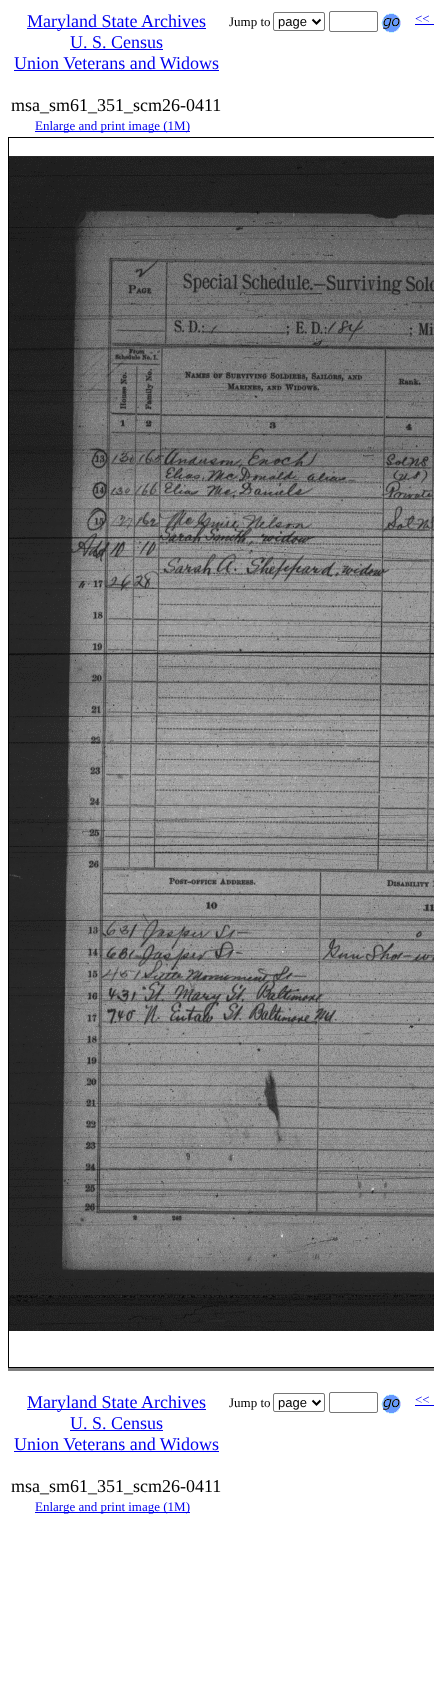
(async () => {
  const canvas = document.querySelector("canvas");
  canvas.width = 434;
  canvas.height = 1691;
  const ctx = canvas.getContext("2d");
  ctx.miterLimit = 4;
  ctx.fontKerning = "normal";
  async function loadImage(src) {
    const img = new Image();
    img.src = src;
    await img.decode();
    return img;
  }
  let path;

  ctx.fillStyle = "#ffffff";
  ctx.fillRect(0, 0, 434, 1691);
  for (const [x, y, w, h, color] of [
    [27, 28, 179, 1, "#0000ee"],
    [70, 49, 93, 1, "#0000ee"],
    [14, 70, 205, 1, "#0000ee"],
    [35, 131, 155, 1, "#0000ee"],
  ]) {
    ctx.fillStyle = color;
    ctx.fillRect(x, y, w, h);
  }
  ctx.beginPath();
  ctx.roundRect(273.5, 12.5, 51, 18, 1.5);
  ctx.strokeStyle = "#767676";
  ctx.stroke();
  path = new Path2D("M312.5 19.5L316.5 23.5L320.5 19.5");
  ctx.strokeStyle = "#000000";
  ctx.lineWidth = 2;
  ctx.stroke(path);
  ctx.beginPath();
  ctx.roundRect(329.5, 11.5, 48, 20, 1.5);
  ctx.strokeStyle = "#767676";
  ctx.lineWidth = 1;
  ctx.stroke();
  ctx.drawImage(await loadImage("img/1.png"), 381, 13, 20, 20);
  for (const [x, y, w, h, color] of [
    [415, 24, 19, 1, "#0000ee"],
    [8, 137, 1, 1231, "#000000"],
    [9, 137, 425, 1, "#000000"],
  ]) {
    ctx.fillStyle = color;
    ctx.fillRect(x, y, w, h);
  }
  ctx.drawImage(await loadImage("img/2.png"), 9, 156, 425, 1175);
  for (const [x, y, w, h, color] of [
    [9, 1367, 425, 1, "#000000"],
    [8, 1368, 426, 3, "#808080"],
    [27, 1409, 179, 1, "#0000ee"],
    [70, 1430, 93, 1, "#0000ee"],
    [14, 1451, 205, 1, "#0000ee"],
    [35, 1512, 155, 1, "#0000ee"],
  ]) {
    ctx.fillStyle = color;
    ctx.fillRect(x, y, w, h);
  }
  ctx.beginPath();
  ctx.roundRect(273.5, 1393.5, 51, 18, 1.5);
  ctx.stroke();
  path = new Path2D("M312.5 1400.5L316.5 1404.5L320.5 1400.5");
  ctx.strokeStyle = "#000000";
  ctx.lineWidth = 2;
  ctx.stroke(path);
  ctx.beginPath();
  ctx.roundRect(329.5, 1392.5, 48, 20, 1.5);
  ctx.strokeStyle = "#767676";
  ctx.lineWidth = 1;
  ctx.stroke();
  ctx.drawImage(await loadImage("img/1.png"), 381, 1394, 20, 20);
  ctx.fillRect(415, 1405, 19, 1);
  ctx.font = "18px Liberation Serif";
  for (const [text, x, y] of [
    ["Maryland State Archives", 27, 27],
    ["U. S. Census", 70, 48],
    ["Union Veterans and Widows", 14, 69],
  ]) {
    ctx.fillText(text, x, y);
  }
  ctx.fillStyle = "#000000";
  ctx.fillText("msa_sm61_351_scm26-0411", 11, 111);
  ctx.font = "13px Liberation Serif";
  ctx.fillStyle = "#0000ee";
  ctx.fillText("Enlarge and print image (1M)", 35, 130);
  ctx.fillStyle = "#000000";
  ctx.fillText("Jump to", 229, 26);
  ctx.font = "13px Liberation Sans";
  ctx.fillText("page", 278, 26);
  ctx.font = "13px Liberation Serif";
  ctx.fillStyle = "#0000ee";
  ctx.fillText("<<", 415, 23);
  ctx.font = "18px Liberation Serif";
  for (const [text, x, y] of [
    ["Maryland State Archives", 27, 1408],
    ["U. S. Census", 70, 1429],
    ["Union Veterans and Widows", 14, 1450],
  ]) {
    ctx.fillText(text, x, y);
  }
  ctx.fillStyle = "#000000";
  ctx.fillText("msa_sm61_351_scm26-0411", 11, 1492);
  ctx.font = "13px Liberation Serif";
  ctx.fillStyle = "#0000ee";
  ctx.fillText("Enlarge and print image (1M)", 35, 1511);
  ctx.fillStyle = "#000000";
  ctx.fillText("Jump to", 229, 1407);
  ctx.font = "13px Liberation Sans";
  ctx.fillText("page", 278, 1407);
  ctx.font = "13px Liberation Serif";
  ctx.fillStyle = "#0000ee";
  ctx.fillText("<<", 415, 1404);
})();
